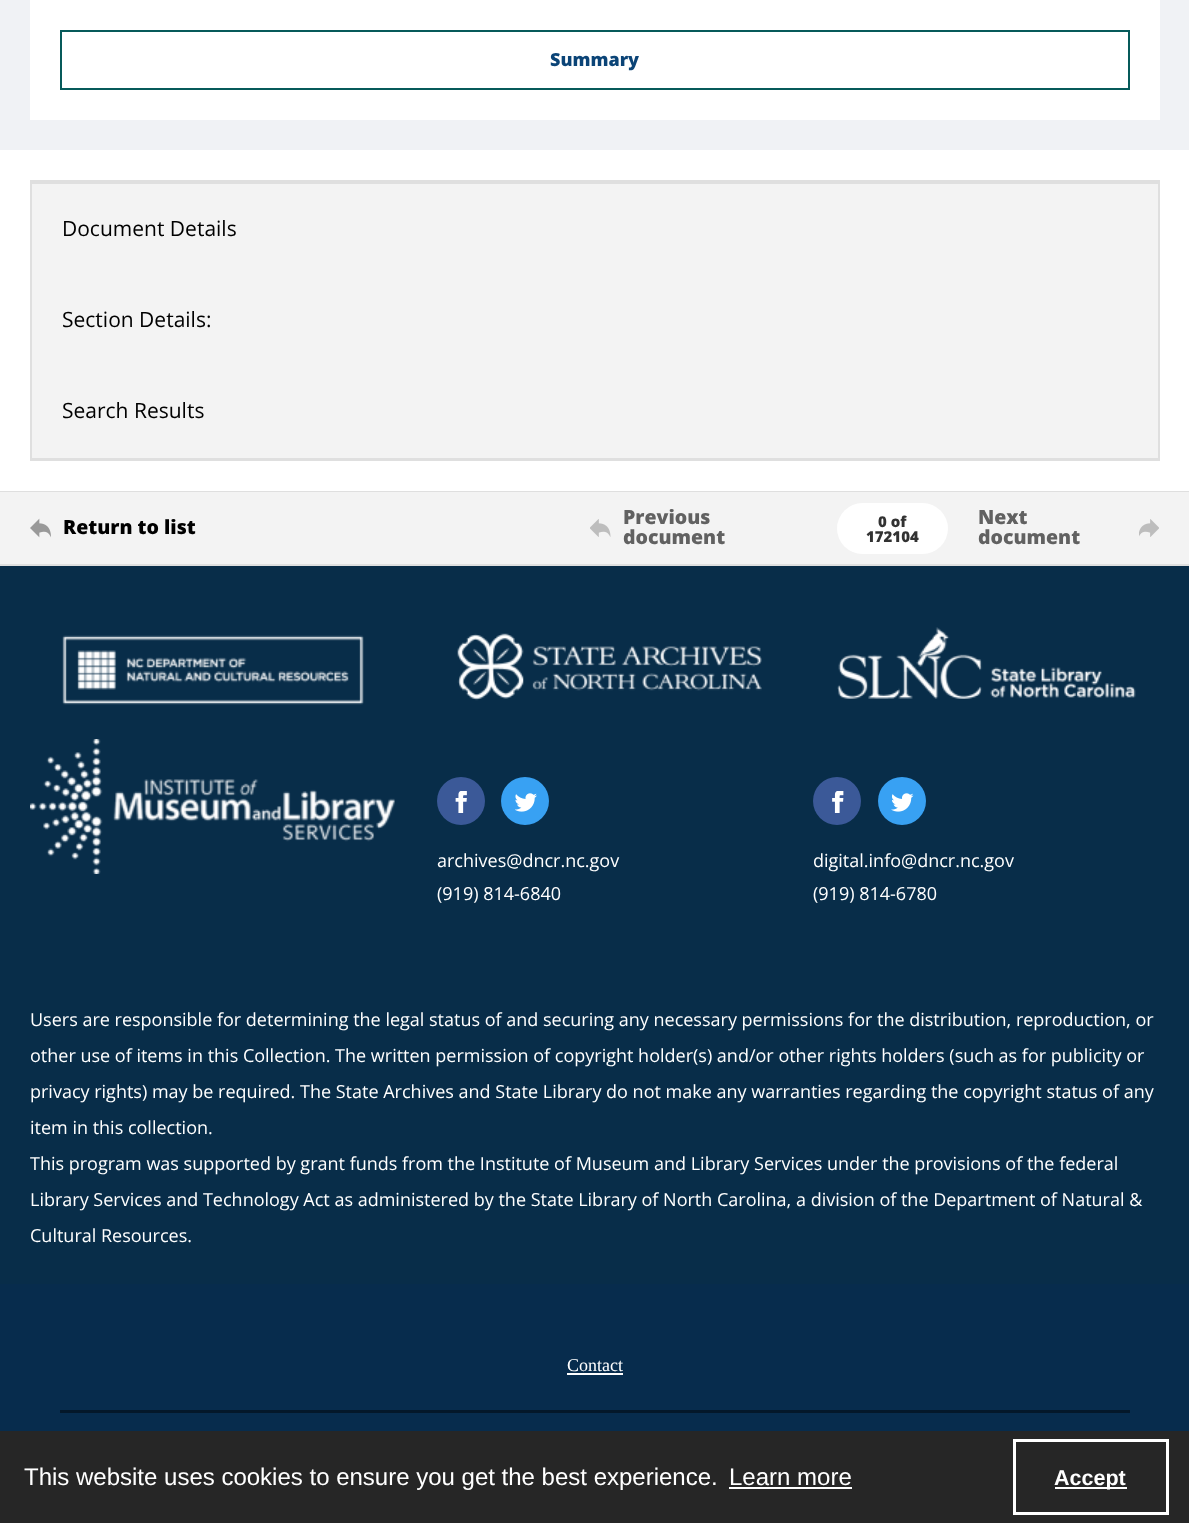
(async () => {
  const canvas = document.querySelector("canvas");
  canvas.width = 1189;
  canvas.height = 1523;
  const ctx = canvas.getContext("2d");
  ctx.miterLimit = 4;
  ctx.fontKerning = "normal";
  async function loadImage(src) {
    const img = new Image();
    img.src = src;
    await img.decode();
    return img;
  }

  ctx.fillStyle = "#ffffff";
  ctx.fillRect(0, 0, 1189, 1523);
  ctx.fillStyle = "#f0f2f5";
  ctx.fillRect(0, 0, 1189, 150);
  ctx.fillStyle = "#ffffff";
  ctx.fillRect(30, 0, 1130, 120);
  ctx.strokeStyle = "#075a5a";
  ctx.lineWidth = 2;
  ctx.strokeRect(61, 31, 1068, 58);
  ctx.strokeStyle = "#dfdfdf";
  ctx.strokeRect(31, 181, 1128, 279);
  for (const [x, y, w, h, color] of [
    [32, 184, 1126, 274, "#f3f3f3"],
    [32, 182, 1126, 2, "#dfdfdf"],
    [32, 458, 1126, 1, "#dfdfdf"],
    [0, 564, 1189, 2, "#dfdfdf"],
    [0, 491, 1189, 1, "#dfdfdf"],
    [0, 492, 1189, 72, "#f3f3f3"],
  ]) {
    ctx.fillStyle = color;
    ctx.fillRect(x, y, w, h);
  }
  ctx.drawImage(await loadImage("img/1.png"), 30, 518, 21, 20);
  ctx.drawImage(await loadImage("img/2.png"), 590, 519, 21, 18);
  ctx.fillStyle = "#ffffff";
  ctx.beginPath();
  ctx.roundRect(837, 503, 111, 51, 25.5);
  ctx.fill();
  ctx.drawImage(await loadImage("img/3.png"), 1139, 519, 20, 18);
  ctx.fillStyle = "#082d49";
  ctx.fillRect(0, 566, 1189, 718);
  ctx.drawImage(await loadImage("img/4.png"), 62, 635, 302, 70);
  ctx.drawImage(await loadImage("img/5.png"), 30, 739, 365, 135);
  ctx.drawImage(await loadImage("img/6.png"), 457, 633, 305, 68);
  ctx.fillStyle = "#3b5998";
  ctx.beginPath();
  ctx.arc(461, 801, 24, 0, Math.PI * 2);
  ctx.fill();
  ctx.drawImage(await loadImage("img/7.png"), 455, 791, 12, 22);
  ctx.fillStyle = "#38a1f3";
  ctx.beginPath();
  ctx.arc(525, 801, 24, 0, Math.PI * 2);
  ctx.fill();
  ctx.drawImage(await loadImage("img/8.png"), 515, 793, 22, 19);
  ctx.drawImage(await loadImage("img/9.png"), 837, 627, 299, 72);
  ctx.fillStyle = "#3b5998";
  ctx.beginPath();
  ctx.arc(837, 801, 24, 0, Math.PI * 2);
  ctx.fill();
  ctx.drawImage(await loadImage("img/10.png"), 832, 791, 12, 22);
  ctx.fillStyle = "#38a1f3";
  ctx.beginPath();
  ctx.arc(902, 801, 24, 0, Math.PI * 2);
  ctx.fill();
  ctx.drawImage(await loadImage("img/11.png"), 891, 793, 23, 19);
  for (const [x, y, w, h, color] of [
    [0, 1284, 1189, 147, "#072c4d"],
    [567, 1373, 56, 2, "#ffffff"],
    [60, 1410, 1070, 3, "#04182a"],
    [0, 1431, 1189, 92, "#262626"],
    [729, 1487, 123, 2, "#ffffff"],
  ]) {
    ctx.fillStyle = color;
    ctx.fillRect(x, y, w, h);
  }
  ctx.strokeStyle = "#ffffff";
  ctx.lineWidth = 3;
  ctx.strokeRect(1014.5, 1440.5, 153, 73);
  ctx.fillRect(1055, 1487, 72, 2);
  ctx.font = "800 18px Open Sans";
  ctx.fillStyle = "#0b4477";
  ctx.fillText("Summary", 550, 66);
  ctx.font = "21px Open Sans";
  ctx.fillStyle = "#000000";
  for (const [text, x, y] of [
    ["Document Details", 62, 236],
    ["Section Details:", 62, 327],
    ["Search Results", 62, 418],
  ]) {
    ctx.fillText(text, x, y);
  }
  ctx.font = "800 19.5px Open Sans";
  ctx.fillText("Return to list", 63, 534);
  ctx.fillStyle = "#616161";
  ctx.fillText("Previous", 623, 524);
  ctx.fillText("document", 623, 544);
  ctx.font = "800 15px Open Sans";
  ctx.fillStyle = "#323232";
  ctx.fillText("0 of", 878, 527);
  ctx.fillText("172104", 866, 542);
  ctx.font = "800 19.5px Open Sans";
  ctx.fillStyle = "#616161";
  ctx.fillText("Next", 978, 524);
  ctx.fillText("document", 978, 544);
  ctx.font = "18px Open Sans";
  ctx.fillStyle = "#ffffff";
  for (const [text, x, y] of [
    ["archives@dncr.nc.gov", 437, 867],
    ["(919) 814-6840", 437, 900],
    ["digital.info@dncr.nc.gov", 813, 867],
    ["(919) 814-6780", 813, 900],
    ["Users are responsible for determining the legal status of and securing any necessary permissions for the distribution, reproduction, or", 30, 1026],
    ["other use of items in this Collection. The written permission of copyright holder(s) and/or other rights holders (such as for publicity or", 30, 1062],
    ["privacy rights) may be required. The State Archives and State Library do not make any warranties regarding the copyright status of any", 30, 1098],
    ["item in this collection.", 30, 1134],
    ["This program was supported by grant funds from the Institute of Museum and Library Services under the provisions of the federal", 30, 1170],
    ["Library Services and Technology Act as administered by the State Library of North Carolina, a division of the Department of Natural &", 30, 1206],
    ["Cultural Resources.", 30, 1242],
  ]) {
    ctx.fillText(text, x, y);
  }
  ctx.font = "18px Liberation Serif";
  ctx.fillText("Contact", 567, 1371);
  ctx.font = "24px Liberation Sans";
  ctx.fillText("This website uses cookies to ensure you get the best experience.", 24, 1485);
  ctx.fillText("Learn more", 729, 1485);
  ctx.font = "bold 21.5px Liberation Sans";
  ctx.fillText("Accept", 1054, 1485);
})();
